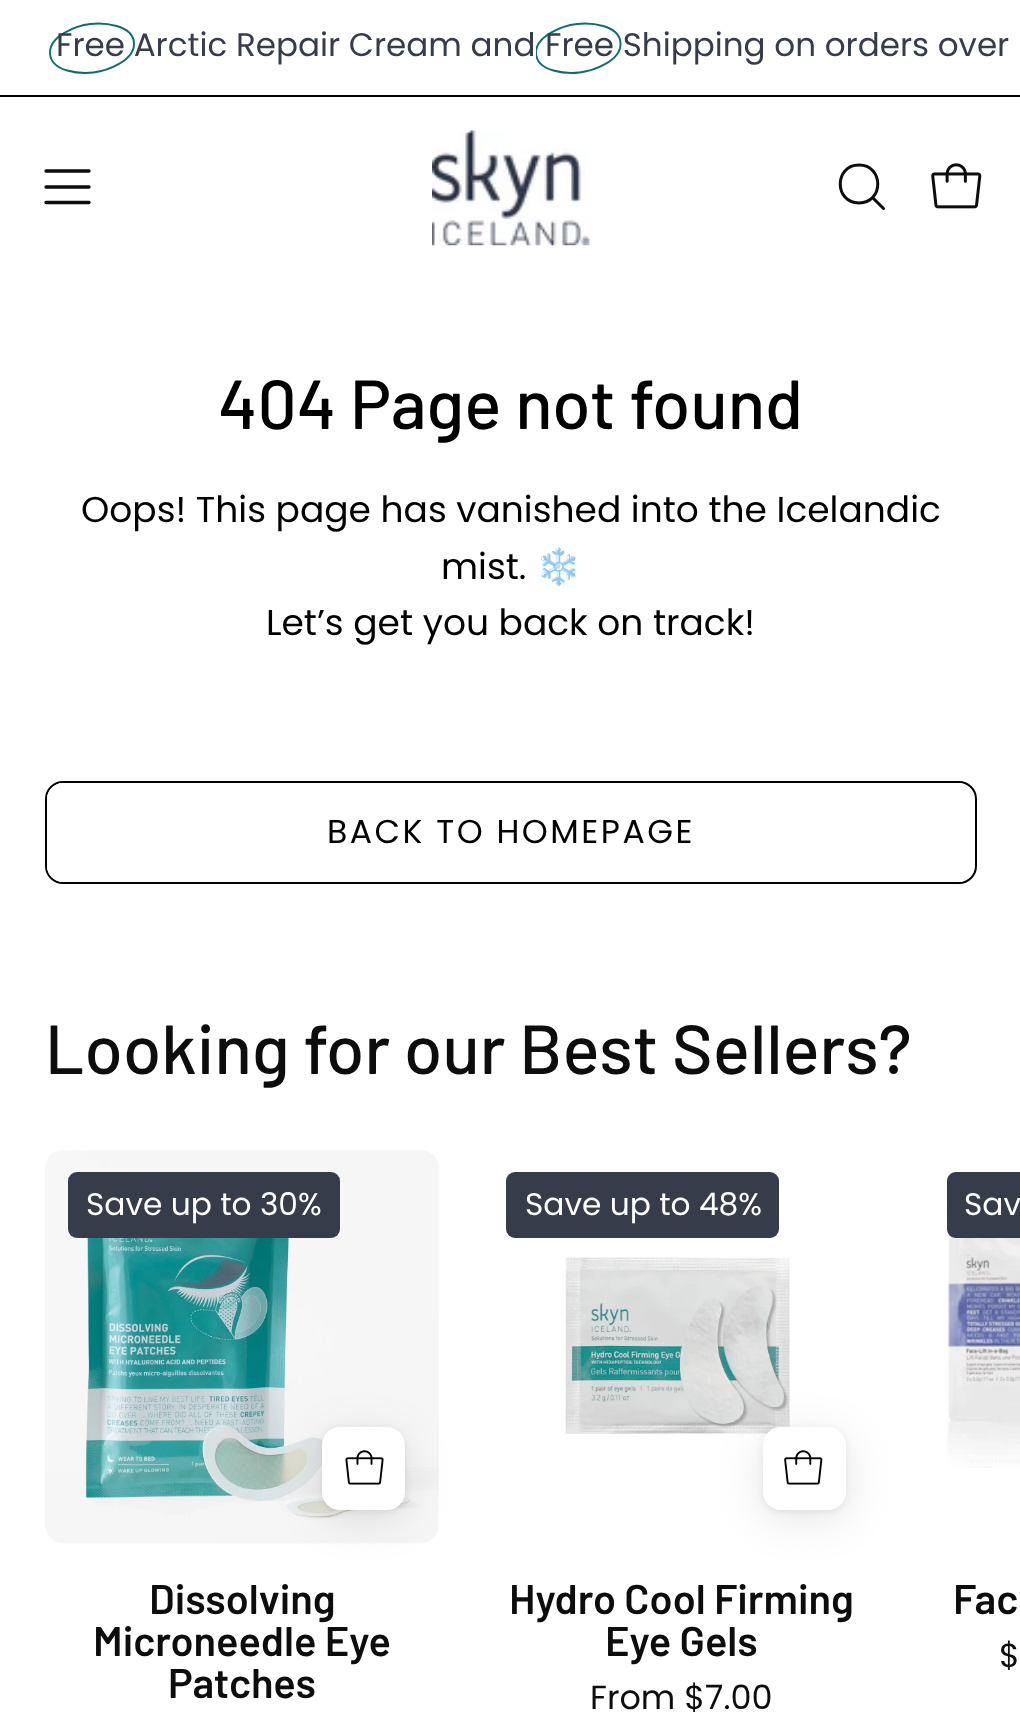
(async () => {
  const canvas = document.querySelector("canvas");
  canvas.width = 1020;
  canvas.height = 1732;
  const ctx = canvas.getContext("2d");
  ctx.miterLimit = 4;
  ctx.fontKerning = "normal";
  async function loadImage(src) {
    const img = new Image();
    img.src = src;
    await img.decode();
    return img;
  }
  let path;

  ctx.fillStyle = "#ffffff";
  ctx.fillRect(0, 0, 1020, 1732);
  ctx.fillStyle = "#000000";
  ctx.fillRect(0, 95, 1020, 2);
  path = new Path2D("M50 53.5C49 35.5 77 25.5 90.5 24C103 22.5 133 24.5 134 43C135 61 106.5 71 93.5 72.5C80.5 74 51 72 50 53.5");
  ctx.strokeStyle = "#0d6e70";
  ctx.lineWidth = 1.9;
  ctx.stroke(path);
  ctx.save();
  ctx.beginPath();
  ctx.rect(536, 20, 87, 54);
  ctx.clip();
  path = new Path2D("M536 53.5C535 35.5 563.5 25.5 577 24C589.5 22.5 619.5 24.5 620.5 43C621.5 61 593 71 579.5 72.5C567 74 537 72 536 53.5");
  ctx.stroke(path);
  ctx.restore();
  path = new Path2D("M46 187H89M46 171H89M46 202.5H89");
  ctx.strokeStyle = "#0d0d0d";
  ctx.lineWidth = 3.3;
  ctx.lineCap = "round";
  ctx.lineJoin = "round";
  ctx.stroke(path);
  ctx.drawImage(await loadImage("img/1.png"), 432, 130, 158, 116);
  path = new Path2D("M859 203C884 203 884 165 859 165C834 165 834 203 859 203ZM872.5 197.5L883.5 208.5");
  ctx.lineWidth = 3;
  ctx.stroke(path);
  ctx.drawImage(await loadImage("img/2.png"), 931, 163, 51, 46);
  ctx.beginPath();
  ctx.roundRect(46, 782, 930, 101, 17);
  ctx.strokeStyle = "#000000";
  ctx.lineWidth = 2;
  ctx.lineJoin = "miter";
  ctx.stroke();
  ctx.fillStyle = "#ffffff";
  ctx.beginPath();
  ctx.roundRect(47, 783, 927, 99, 16);
  ctx.fill();
  ctx.drawImage(await loadImage("img/3.png"), 45, 1150, 394, 394);
  ctx.fillStyle = "#363c4a";
  ctx.beginPath();
  ctx.roundRect(68, 1172, 272, 66, 9);
  ctx.fill();
  ctx.fillStyle = "rgba(0, 0, 0, 0.07)";
  ctx.filter = "blur(3.5px)";
  ctx.beginPath();
  ctx.roundRect(322, 1429, 83, 83, 18);
  ctx.fill();
  ctx.filter = "none";
  ctx.fillStyle = "rgba(0, 0, 0, 0.1)";
  ctx.filter = "blur(22.5px)";
  ctx.beginPath();
  ctx.roundRect(322, 1436, 83, 83, 18);
  ctx.fill();
  ctx.filter = "none";
  ctx.fillStyle = "#ffffff";
  ctx.beginPath();
  ctx.roundRect(322, 1427, 83, 83, 18);
  ctx.fill();
  ctx.drawImage(await loadImage("img/4.png"), 345, 1450, 39, 35);
  ctx.fillStyle = "#363c4a";
  ctx.beginPath();
  ctx.roundRect(506, 1172, 273, 66, 9);
  ctx.fill();
  ctx.drawImage(await loadImage("img/5.png"), 565, 1257, 225, 177);
  ctx.fillStyle = "rgba(0, 0, 0, 0.07)";
  ctx.filter = "blur(3.5px)";
  ctx.beginPath();
  ctx.roundRect(763, 1429, 83, 83, 18);
  ctx.fill();
  ctx.filter = "none";
  ctx.fillStyle = "rgba(0, 0, 0, 0.1)";
  ctx.filter = "blur(22.5px)";
  ctx.beginPath();
  ctx.roundRect(763, 1436, 83, 83, 18);
  ctx.fill();
  ctx.filter = "none";
  ctx.fillStyle = "#ffffff";
  ctx.beginPath();
  ctx.roundRect(763, 1427, 83, 83, 18);
  ctx.fill();
  ctx.drawImage(await loadImage("img/6.png"), 784, 1450, 39, 35);
  ctx.drawImage(await loadImage("img/7.png"), 946, 1199, 74, 269);
  ctx.fillStyle = "#363c4a";
  path = new Path2D("M956 1172H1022V1238H956C951 1238 947 1234 947 1229V1181C947 1176 951 1172 956 1172Z");
  ctx.fill(path);
  ctx.font = "32.6px Poppins";
  ctx.fillText("Free Arctic Repair Cream and", 56, 56);
  ctx.fillText("Free Shipping on orders over", 545, 56);
  ctx.font = "500 69.25px Barlow";
  ctx.fillStyle = "#000000";
  ctx.fillText("404 Page not found", 218, 429);
  ctx.font = "36px Poppins";
  ctx.fillText("Oops! This page has vanished into the Icelandic", 81, 522);
  ctx.fillText("mist.", 441, 579);
  ctx.font = "36px Noto Color Emoji";
  ctx.fillText("❄️", 536, 579);
  ctx.font = "36px Poppins";
  ctx.fillText("Let’s get you back on track!", 266, 635);
  ctx.letterSpacing = "2.5px";
  ctx.font = "33.1px Poppins";
  ctx.fillText("BACK TO HOMEPAGE", 327, 843);
  ctx.letterSpacing = "0px";
  ctx.font = "500 69.25px Barlow";
  ctx.fillStyle = "#0d0d0d";
  ctx.fillText("Looking for our Best Sellers?", 45, 1074);
  ctx.font = "31.25px Poppins";
  ctx.fillStyle = "#ffffff";
  ctx.fillText("Save up to 30%", 86, 1215);
  ctx.font = "600 41.5px Barlow";
  ctx.fillStyle = "#0d0d0d";
  for (const [text, x, y] of [
    ["Dissolving", 149, 1614],
    ["Microneedle Eye", 93, 1656],
    ["Patches", 168, 1698],
  ]) {
    ctx.fillText(text, x, y);
  }
  ctx.font = "31.25px Poppins";
  ctx.fillStyle = "#ffffff";
  ctx.fillText("Save up to 48%", 525, 1215);
  ctx.font = "600 41.5px Barlow";
  ctx.fillStyle = "#0d0d0d";
  ctx.fillText("Hydro Cool Firming", 509, 1614);
  ctx.fillText("Eye Gels", 605, 1656);
  ctx.font = "33.5px Poppins";
  ctx.fillText("From $7.00", 590, 1709);
  ctx.font = "31.25px Poppins";
  ctx.fillStyle = "#ffffff";
  ctx.fillText("Sav", 964, 1215);
  ctx.font = "600 41.5px Barlow";
  ctx.fillStyle = "#0d0d0d";
  ctx.fillText("Fac", 953, 1614);
  ctx.font = "33.5px Poppins";
  ctx.fillText("$", 999, 1667);
})();
